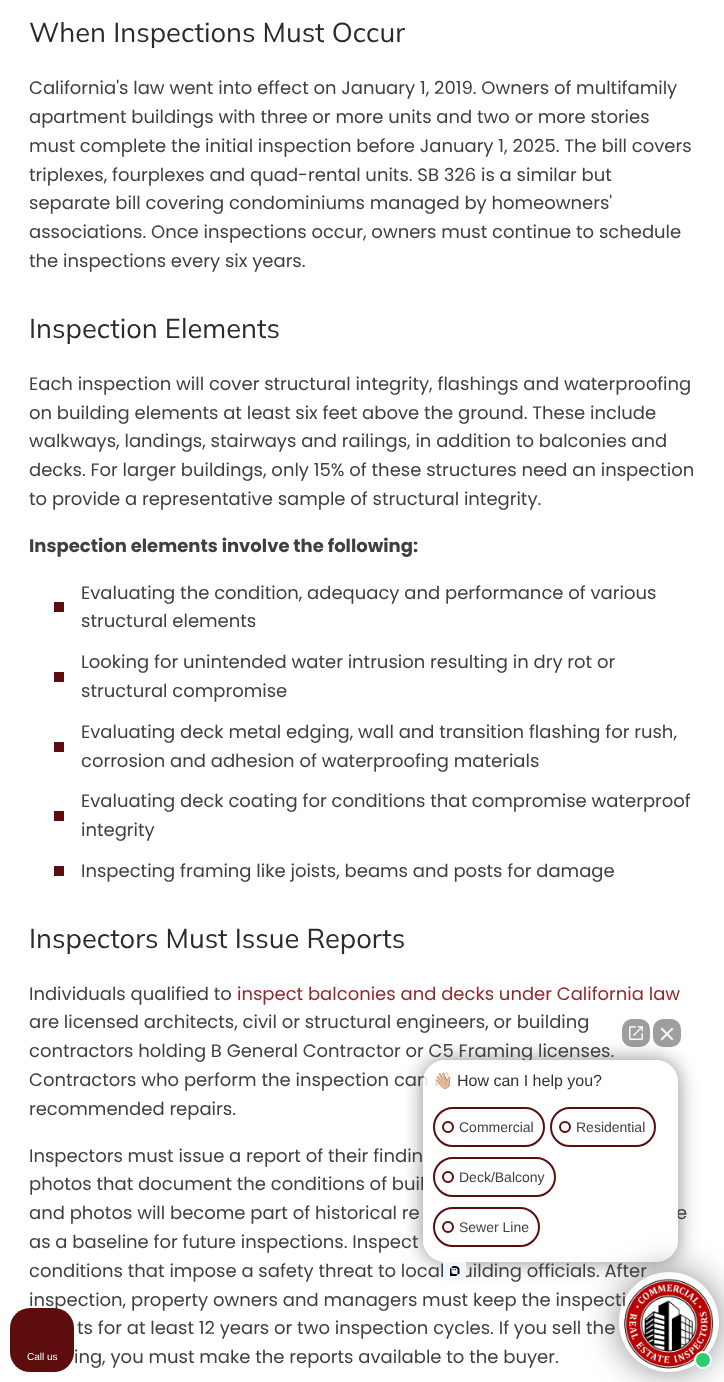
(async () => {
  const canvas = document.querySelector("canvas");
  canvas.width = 724;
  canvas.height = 1382;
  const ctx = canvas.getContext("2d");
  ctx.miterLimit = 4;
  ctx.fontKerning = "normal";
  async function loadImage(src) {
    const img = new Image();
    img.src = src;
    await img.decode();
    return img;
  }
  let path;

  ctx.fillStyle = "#ffffff";
  ctx.fillRect(0, 0, 724, 1382);
  for (const [x, y, w, h, color] of [
    [54, 602, 10, 10, "#5d0d0d"],
    [54, 672, 10, 10, "#5d0d0d"],
    [54, 742, 10, 10, "#5d0d0d"],
    [54, 811, 10, 10, "#5d0d0d"],
    [54, 866, 10, 10, "#5d0d0d"],
  ]) {
    ctx.fillStyle = color;
    ctx.fillRect(x, y, w, h);
  }
  ctx.save();
  path = new Path2D("M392 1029H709V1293H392ZM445 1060H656C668 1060 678 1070 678 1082V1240C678 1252 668 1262 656 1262H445C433 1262 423 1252 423 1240V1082C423 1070 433 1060 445 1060Z");
  ctx.clip(path, "evenodd");
  ctx.fillStyle = "rgba(60, 60, 60, 0.6)";
  ctx.filter = "blur(10px)";
  ctx.beginPath();
  ctx.roundRect(423, 1060, 255, 202, 22);
  ctx.fill();
  ctx.filter = "none";
  ctx.restore();
  ctx.fillStyle = "rgba(39, 39, 39, 0.45)";
  ctx.beginPath();
  ctx.roundRect(622, 1019, 28, 28, 10);
  ctx.fill();
  ctx.drawImage(await loadImage("img/1.png"), 629, 1026, 14, 14);
  ctx.beginPath();
  ctx.roundRect(653, 1019, 28, 28, 10);
  ctx.fill();
  ctx.fillStyle = "#f5f5f5";
  path = new Path2D("M660.5 1029L662 1027.5L673.5 1039L672 1040.5Z");
  ctx.fill(path);
  path = new Path2D("M672 1027.5L673.5 1029L662 1040.5L660.5 1039Z");
  ctx.fill(path);
  ctx.font = "27.25px Mulish";
  ctx.fillStyle = "#2b2c28";
  ctx.fillText("When Inspections Must Occur", 29, 42);
  ctx.font = "18px Poppins";
  ctx.fillStyle = "#404040";
  for (const [text, x, y] of [
    ["California's law went into effect on January 1, 2019. Owners of multifamily", 29, 94],
    ["apartment buildings with three or more units and two or more stories", 29, 123],
    ["must complete the initial inspection before January 1, 2025. The bill covers", 29, 152],
    ["triplexes, fourplexes and quad-rental units. SB 326 is a similar but", 29, 181],
    ["separate bill covering condominiums managed by homeowners'", 29, 209],
    ["associations. Once inspections occur, owners must continue to schedule", 29, 238],
    ["the inspections every six years.", 29, 267],
  ]) {
    ctx.fillText(text, x, y);
  }
  ctx.font = "27.25px Mulish";
  ctx.fillStyle = "#2b2c28";
  ctx.fillText("Inspection Elements", 29, 338);
  ctx.font = "18px Poppins";
  ctx.fillStyle = "#404040";
  for (const [text, x, y] of [
    ["Each inspection will cover structural integrity, flashings and waterproofing", 29, 390],
    ["on building elements at least six feet above the ground. These include", 29, 419],
    ["walkways, landings, stairways and railings, in addition to balconies and", 29, 447],
    ["decks. For larger buildings, only 15% of these structures need an inspection", 29, 476],
    ["to provide a representative sample of structural integrity.", 29, 505],
  ]) {
    ctx.fillText(text, x, y);
  }
  ctx.font = "bold 18px Poppins";
  ctx.fillText("Inspection elements involve the following:", 29, 552);
  ctx.font = "18px Poppins";
  for (const [text, x, y] of [
    ["Evaluating the condition, adequacy and performance of various", 81, 599],
    ["structural elements", 81, 627],
    ["Looking for unintended water intrusion resulting in dry rot or", 81, 668],
    ["structural compromise", 81, 697],
    ["Evaluating deck metal edging, wall and transition flashing for rush,", 81, 738],
    ["corrosion and adhesion of waterproofing materials", 81, 767],
    ["Evaluating deck coating for conditions that compromise waterproof", 81, 807],
    ["integrity", 81, 836],
    ["Inspecting framing like joists, beams and posts for damage", 81, 877],
  ]) {
    ctx.fillText(text, x, y);
  }
  ctx.font = "27.25px Mulish";
  ctx.fillStyle = "#2b2c28";
  ctx.fillText("Inspectors Must Issue Reports", 29, 948);
  ctx.font = "18px Poppins";
  ctx.fillStyle = "#404040";
  ctx.fillText("Individuals qualified to", 29, 1000);
  ctx.fillStyle = "#922929";
  ctx.fillText("inspect balconies and decks under California law", 237, 1000);
  ctx.fillStyle = "#404040";
  for (const [text, x, y] of [
    ["are licensed architects, civil or structural engineers, or building", 29, 1028],
    ["contractors holding B General Contractor or C5 Framing licenses.", 29, 1057],
    ["Contractors who perform the inspection can", 29, 1086],
    ["recommended repairs.", 29, 1115],
    ["Inspectors must issue a report of their findin", 29, 1162],
    ["photos that document the conditions of buil", 29, 1190],
    ["and photos will become part of historical re", 29, 1219],
    ["e", 676, 1219],
    ["as a baseline for future inspections. Inspect", 29, 1248],
    ["conditions that impose a safety threat to local building officials. After", 29, 1277],
    ["inspection, property owners and managers must keep the inspecti", 29, 1306],
    ["ts for at least 12 years or two inspection cycles. If you sell the", 77, 1334],
    ["ing, you must make the reports available to the buyer.", 74, 1363],
  ]) {
    ctx.fillText(text, x, y);
  }
  ctx.fillStyle = "rgba(255, 255, 255, 0.85)";
  ctx.beginPath();
  ctx.roundRect(423, 1060, 255, 202, 22);
  ctx.fill();
  ctx.font = "16px Noto Color Emoji";
  ctx.fillStyle = "#313131";
  ctx.fillText("👋🏼", 433, 1086);
  ctx.font = "16px Liberation Sans";
  ctx.fillText("How can I help you?", 457, 1086);
  ctx.beginPath();
  ctx.roundRect(434, 1108, 110, 38, 19);
  ctx.strokeStyle = "#5d0d0d";
  ctx.lineWidth = 2;
  ctx.stroke();
  ctx.beginPath();
  ctx.arc(448, 1127, 5, 0, Math.PI * 2);
  ctx.stroke();
  ctx.font = "14px Liberation Sans";
  ctx.fillStyle = "#404040";
  ctx.fillText("Commercial", 459, 1132);
  ctx.beginPath();
  ctx.roundRect(551, 1108, 104, 38, 19);
  ctx.stroke();
  ctx.beginPath();
  ctx.arc(565, 1127, 5, 0, Math.PI * 2);
  ctx.stroke();
  ctx.fillText("Residential", 576, 1132);
  ctx.beginPath();
  ctx.roundRect(434, 1158, 121, 38, 19);
  ctx.stroke();
  ctx.beginPath();
  ctx.arc(448, 1177, 5, 0, Math.PI * 2);
  ctx.stroke();
  ctx.fillText("Deck/Balcony", 459, 1182);
  ctx.beginPath();
  ctx.roundRect(434, 1208, 105, 38, 19);
  ctx.stroke();
  ctx.beginPath();
  ctx.arc(448, 1227, 5, 0, Math.PI * 2);
  ctx.stroke();
  ctx.fillText("Sewer Line", 459, 1232);
  ctx.drawImage(await loadImage("img/2.png"), 443, 1262, 23, 18);
  ctx.save();
  path = new Path2D("M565 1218H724V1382H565ZM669 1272C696.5 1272 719 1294.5 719 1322C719 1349.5 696.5 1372 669 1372C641.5 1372 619 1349.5 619 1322C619 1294.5 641.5 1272 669 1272Z");
  ctx.clip(path, "evenodd");
  ctx.fillStyle = "rgba(60, 60, 60, 0.6)";
  ctx.filter = "blur(17.5px)";
  ctx.beginPath();
  ctx.roundRect(619, 1272, 100, 100, 50);
  ctx.fill();
  ctx.filter = "none";
  ctx.restore();
  ctx.drawImage(await loadImage("img/3.png"), 624, 1278, 90, 91);
  ctx.fillStyle = "#2ecc71";
  ctx.beginPath();
  ctx.arc(703, 1360, 8, 0, Math.PI * 2);
  ctx.fill();
  ctx.strokeStyle = "#ffffff";
  ctx.stroke();
  ctx.fillStyle = "#5d0d0d";
  ctx.beginPath();
  ctx.roundRect(10, 1308, 64, 64, 20);
  ctx.fill();
  ctx.font = "10px Liberation Sans";
  ctx.fillStyle = "#ffffff";
  ctx.fillText("Call us", 27, 1360);
})();
